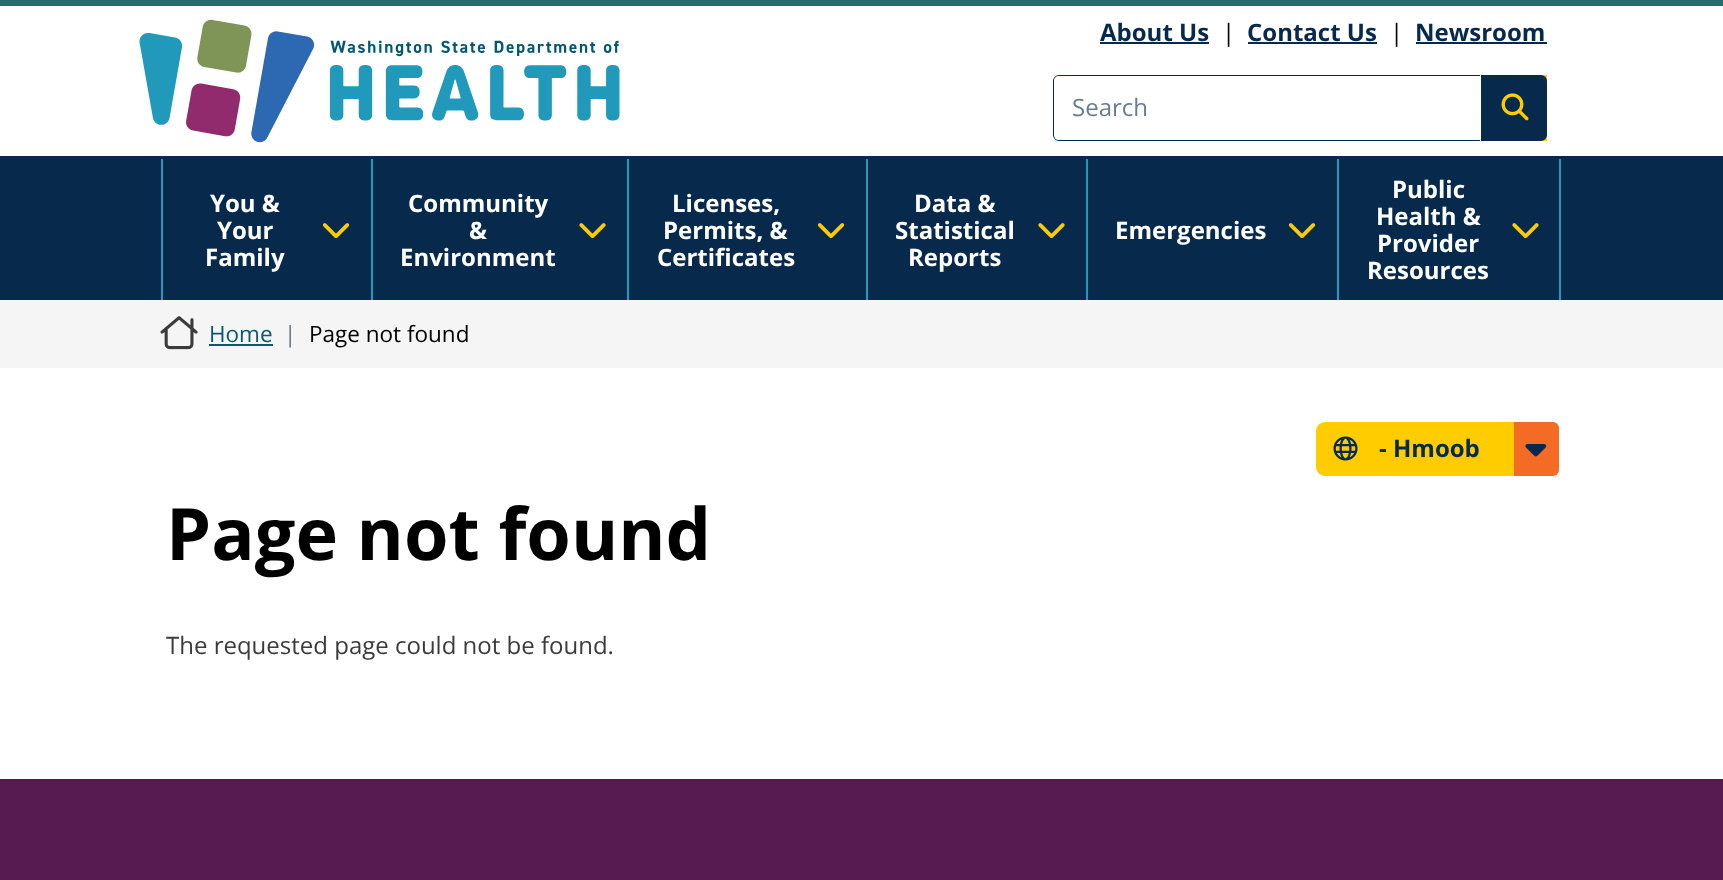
(async () => {
  const canvas = document.querySelector("canvas");
  canvas.width = 1723;
  canvas.height = 880;
  const ctx = canvas.getContext("2d");
  ctx.miterLimit = 4;
  ctx.fontKerning = "normal";
  async function loadImage(src) {
    const img = new Image();
    img.src = src;
    await img.decode();
    return img;
  }
  let path;

  ctx.fillStyle = "#ffffff";
  ctx.fillRect(0, 0, 1723, 880);
  ctx.fillStyle = "#266c6c";
  ctx.fillRect(0, 0, 1723, 6);
  ctx.drawImage(await loadImage("img/1.png"), 139, 19, 481, 124);
  for (const [x, y, w, h, color] of [
    [1100, 42, 109, 2, "#07294c"],
    [1248, 42, 129, 2, "#07294c"],
    [1416, 42, 131, 2, "#07294c"],
  ]) {
    ctx.fillStyle = color;
    ctx.fillRect(x, y, w, h);
  }
  path = new Path2D("M1059 75H1480V141H1059C1056 141 1053 138 1053 135V81C1053 78 1056 75 1059 75ZM1059 76H1480V140H1059C1056 140 1054 138 1054 135V81C1054 78 1056 76 1059 76Z");
  ctx.fill(path, "evenodd");
  ctx.fillStyle = "#ffcc00";
  ctx.fillRect(1541, 75, 6, 66);
  ctx.fillStyle = "#07294c";
  ctx.beginPath();
  ctx.roundRect(1482, 76, 64, 64, [0, 5, 5, 0]);
  ctx.fill();
  ctx.strokeStyle = "#07294c";
  ctx.lineWidth = 2;
  ctx.stroke();
  ctx.drawImage(await loadImage("img/2.png"), 1501, 93, 28, 28);
  ctx.fillRect(0, 156, 1723, 144);
  ctx.fillStyle = "#2699bb";
  ctx.fillRect(161, 159, 2, 141);
  ctx.drawImage(await loadImage("img/3.png"), 322, 223, 28, 16);
  ctx.fillRect(371, 159, 2, 141);
  ctx.drawImage(await loadImage("img/4.png"), 579, 223, 27, 16);
  ctx.fillRect(627, 159, 2, 141);
  ctx.drawImage(await loadImage("img/3.png"), 817, 223, 28, 16);
  ctx.fillRect(866, 159, 2, 141);
  ctx.drawImage(await loadImage("img/4.png"), 1038, 223, 27, 16);
  ctx.fillRect(1086, 159, 2, 141);
  ctx.drawImage(await loadImage("img/3.png"), 1288, 223, 28, 16);
  ctx.fillRect(1337, 159, 2, 141);
  ctx.drawImage(await loadImage("img/4.png"), 1512, 223, 27, 16);
  ctx.fillRect(1559, 159, 2, 141);
  ctx.fillStyle = "#f5f5f5";
  ctx.fillRect(0, 300, 1723, 68);
  ctx.drawImage(await loadImage("img/5.png"), 160, 316, 38, 34);
  ctx.fillStyle = "#08586f";
  ctx.fillRect(209, 344, 64, 2);
  ctx.fillStyle = "#ffcc00";
  ctx.beginPath();
  ctx.roundRect(1316, 422, 243, 54, 9);
  ctx.fill();
  ctx.drawImage(await loadImage("img/6.png"), 1333, 436, 25, 25);
  ctx.fillStyle = "#f36b24";
  ctx.beginPath();
  ctx.roundRect(1514, 422, 45, 54, [0, 6, 6, 0]);
  ctx.fill();
  ctx.drawImage(await loadImage("img/7.png"), 1525, 444, 22, 13);
  ctx.fillStyle = "#581b51";
  ctx.fillRect(0, 779, 1723, 101);
  ctx.font = "bold 24px Open Sans";
  ctx.fillStyle = "#07294c";
  ctx.fillText("About Us", 1100, 41);
  ctx.font = "24px Open Sans";
  ctx.fillStyle = "#000000";
  ctx.fillText("|", 1222, 41);
  ctx.font = "bold 24px Open Sans";
  ctx.fillStyle = "#07294c";
  ctx.fillText("Contact Us", 1247, 41);
  ctx.font = "24px Open Sans";
  ctx.fillStyle = "#000000";
  ctx.fillText("|", 1390, 41);
  ctx.font = "bold 24px Open Sans";
  ctx.fillStyle = "#07294c";
  ctx.fillText("Newsroom", 1415, 41);
  ctx.font = "24px Open Sans";
  ctx.fillStyle = "#6b7c8f";
  ctx.fillText("Search", 1072, 116);
  ctx.font = "bold 24px Open Sans";
  ctx.fillStyle = "#ffffff";
  for (const [text, x, y] of [
    ["You &", 210, 212],
    ["Your", 217, 239],
    ["Family", 205, 266],
    ["Community", 408, 212],
    ["&", 469, 239],
    ["Environment", 400, 266],
    ["Licenses,", 672, 212],
    ["Permits, &", 663, 239],
    ["Certificates", 657, 266],
    ["Data &", 914, 212],
    ["Statistical", 895, 239],
    ["Reports", 908, 266],
    ["Emergencies", 1115, 239],
    ["Public", 1392, 198],
    ["Health &", 1376, 225],
    ["Provider", 1377, 252],
    ["Resources", 1367, 279],
  ]) {
    ctx.fillText(text, x, y);
  }
  ctx.font = "22.5px Open Sans";
  ctx.fillStyle = "#08586f";
  ctx.fillText("Home", 209, 342);
  ctx.fillStyle = "#6c757d";
  ctx.fillText("|", 284, 342);
  ctx.fillStyle = "#000000";
  ctx.fillText("Page not found", 309, 342);
  ctx.font = "bold 24px Open Sans";
  ctx.fillStyle = "#07294c";
  ctx.fillText("- Hmoob", 1379, 457);
  ctx.font = "bold 72px Open Sans";
  ctx.fillStyle = "#000000";
  ctx.fillText("Page not found", 166, 560);
  ctx.font = "24px Open Sans";
  ctx.fillStyle = "#3b3b3b";
  ctx.fillText("The requested page could not be found.", 166, 654);
})();
